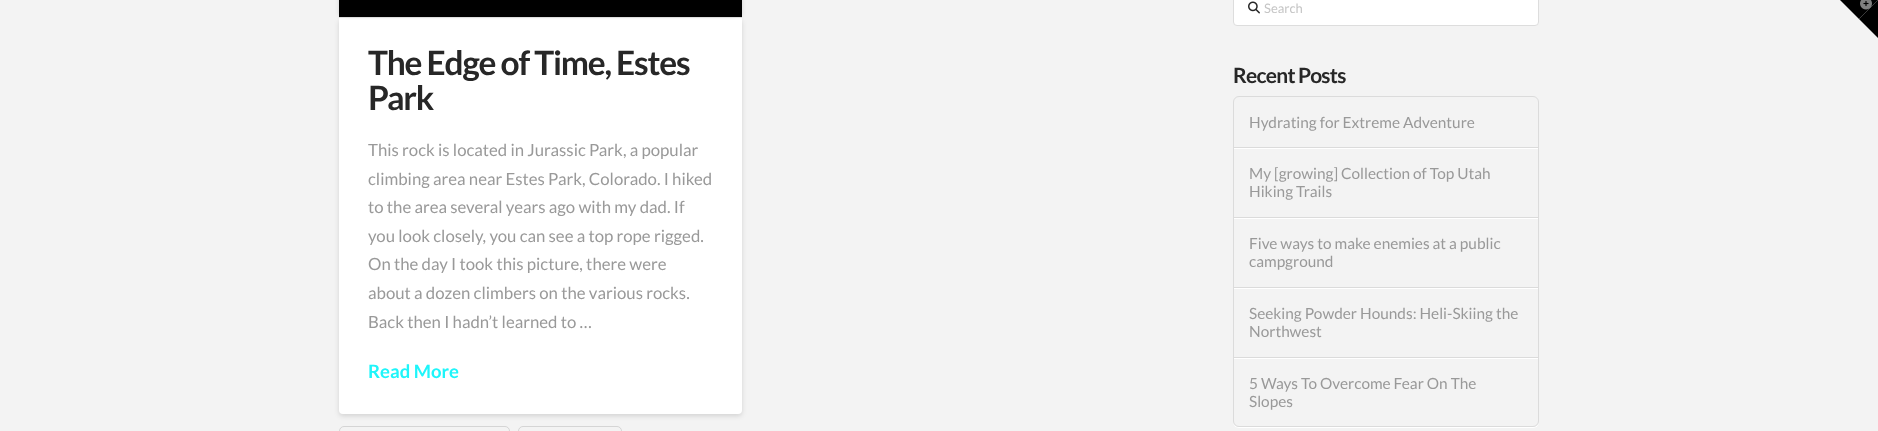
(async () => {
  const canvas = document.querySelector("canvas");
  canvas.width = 1878;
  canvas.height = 431;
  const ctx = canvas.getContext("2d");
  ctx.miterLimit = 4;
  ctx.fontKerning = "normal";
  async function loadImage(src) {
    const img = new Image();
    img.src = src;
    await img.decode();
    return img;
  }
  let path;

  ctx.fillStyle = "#f3f3f3";
  ctx.fillRect(0, 0, 1878, 431);
  ctx.fillStyle = "rgba(0, 0, 0, 0.13)";
  ctx.filter = "blur(2.5px)";
  ctx.beginPath();
  ctx.roundRect(339, 20, 403, 396, 4);
  ctx.fill();
  ctx.filter = "none";
  ctx.fillStyle = "#ffffff";
  ctx.beginPath();
  ctx.roundRect(339, 18, 403, 396, [0, 0, 4, 4]);
  ctx.fill();
  ctx.fillStyle = "rgba(0, 0, 0, 0.13)";
  ctx.filter = "blur(2px)";
  ctx.beginPath();
  ctx.rect(339, -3, 395, 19);
  ctx.fill();
  ctx.filter = "none";
  ctx.filter = "blur(2px)";
  ctx.beginPath();
  ctx.rect(347, -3, 395, 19);
  ctx.fill();
  ctx.filter = "none";
  ctx.fillStyle = "#dddddd";
  ctx.fillRect(339, 17, 403, 1);
  ctx.fillStyle = "#000000";
  ctx.fillRect(339, 0, 403, 17);
  ctx.beginPath();
  ctx.roundRect(339.5, 426.5, 170, 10, 4.5);
  ctx.strokeStyle = "#d5d5d5";
  ctx.stroke();
  ctx.beginPath();
  ctx.roundRect(518.5, 426.5, 103, 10, 4.5);
  ctx.stroke();
  ctx.fillStyle = "#ffffff";
  ctx.beginPath();
  ctx.roundRect(1233.5, -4.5, 305, 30, 3.5);
  ctx.fill();
  ctx.strokeStyle = "#dddddd";
  ctx.stroke();
  ctx.drawImage(await loadImage("img/1.png"), 1248, 1, 12, 13);
  ctx.save();
  path = new Path2D("M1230 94H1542V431H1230ZM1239 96H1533C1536.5 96 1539 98.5 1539 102V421C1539 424.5 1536.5 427 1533 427H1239C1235.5 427 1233 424.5 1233 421V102C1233 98.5 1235.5 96 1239 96Z");
  ctx.clip(path, "evenodd");
  ctx.fillStyle = "rgba(255, 255, 255, 0.95)";
  ctx.filter = "blur(0.5px)";
  ctx.beginPath();
  ctx.roundRect(1233, 97, 306, 331, 6);
  ctx.fill();
  ctx.filter = "none";
  ctx.restore();
  ctx.beginPath();
  ctx.roundRect(1233.5, 96.5, 305, 330, 5.5);
  ctx.strokeStyle = "#dbdbdb";
  ctx.stroke();
  ctx.save();
  ctx.beginPath();
  ctx.rect(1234, 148, 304, 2);
  ctx.clip();
  ctx.fillStyle = "rgba(255, 255, 255, 0.95)";
  ctx.filter = "blur(0.5px)";
  ctx.beginPath();
  ctx.rect(1234, 98, 304, 51);
  ctx.fill();
  ctx.filter = "none";
  ctx.restore();
  ctx.fillStyle = "#dbdbdb";
  ctx.fillRect(1234, 147, 304, 1);
  ctx.save();
  ctx.beginPath();
  ctx.rect(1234, 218, 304, 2);
  ctx.clip();
  ctx.fillStyle = "rgba(255, 255, 255, 0.95)";
  ctx.filter = "blur(0.5px)";
  ctx.beginPath();
  ctx.rect(1234, 149, 304, 70);
  ctx.fill();
  ctx.filter = "none";
  ctx.restore();
  ctx.fillRect(1234, 217, 304, 1);
  ctx.save();
  ctx.beginPath();
  ctx.rect(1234, 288, 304, 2);
  ctx.clip();
  ctx.fillStyle = "rgba(255, 255, 255, 0.95)";
  ctx.filter = "blur(0.5px)";
  ctx.beginPath();
  ctx.rect(1234, 219, 304, 70);
  ctx.fill();
  ctx.filter = "none";
  ctx.restore();
  ctx.fillRect(1234, 287, 304, 1);
  ctx.save();
  ctx.beginPath();
  ctx.rect(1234, 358, 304, 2);
  ctx.clip();
  ctx.fillStyle = "rgba(255, 255, 255, 0.95)";
  ctx.filter = "blur(0.5px)";
  ctx.beginPath();
  ctx.rect(1234, 289, 304, 70);
  ctx.fill();
  ctx.filter = "none";
  ctx.restore();
  ctx.fillRect(1234, 357, 304, 1);
  ctx.fillStyle = "#000000";
  path = new Path2D("M1840 0H1878L1859 19Z");
  ctx.fill(path);
  path = new Path2D("M1878 0V38L1859 19Z");
  ctx.fill(path);
  ctx.drawImage(await loadImage("img/2.png"), 1860, 0, 12, 10);
  ctx.letterSpacing = "-1.2px";
  ctx.font = "bold 33.5px Lato";
  ctx.fillStyle = "#272727";
  ctx.fillText("The Edge of Time, Estes", 368, 75);
  ctx.fillText("Park", 368, 110);
  ctx.letterSpacing = "0px";
  ctx.font = "16.8px Lato";
  ctx.fillStyle = "#999999";
  for (const [text, x, y] of [
    ["This rock is located in Jurassic Park, a popular", 368, 156],
    ["climbing area near Estes Park, Colorado. I hiked", 368, 185],
    ["to the area several years ago with my dad. If", 368, 213],
    ["you look closely, you can see a top rope rigged.", 368, 242],
    ["On the day I took this picture, there were", 368, 270],
    ["about a dozen climbers on the various rocks.", 368, 299],
    ["Back then I hadn’t learned to …", 368, 328],
  ]) {
    ctx.fillText(text, x, y);
  }
  ctx.font = "bold 18.5px Lato";
  ctx.fillStyle = "#1ef5fa";
  ctx.fillText("Read More", 368, 378);
  ctx.font = "13px Lato";
  ctx.fillStyle = "#c5c5c5";
  ctx.fillText("Search", 1264, 13);
  ctx.letterSpacing = "-0.75px";
  ctx.font = "bold 21px Lato";
  ctx.fillStyle = "#272727";
  ctx.fillText("Recent Posts", 1233, 83);
  ctx.letterSpacing = "0px";
  ctx.font = "15.4px Lato";
  ctx.fillStyle = "#999999";
  for (const [text, x, y] of [
    ["Hydrating for Extreme Adventure", 1249, 128],
    ["My [growing] Collection of Top Utah", 1249, 179],
    ["Hiking Trails", 1249, 197],
    ["Five ways to make enemies at a public", 1249, 249],
    ["campground", 1249, 267],
    ["Seeking Powder Hounds: Heli-Skiing the", 1249, 319],
    ["Northwest", 1249, 337],
    ["5 Ways To Overcome Fear On The", 1249, 389],
    ["Slopes", 1249, 407],
  ]) {
    ctx.fillText(text, x, y);
  }
})();
